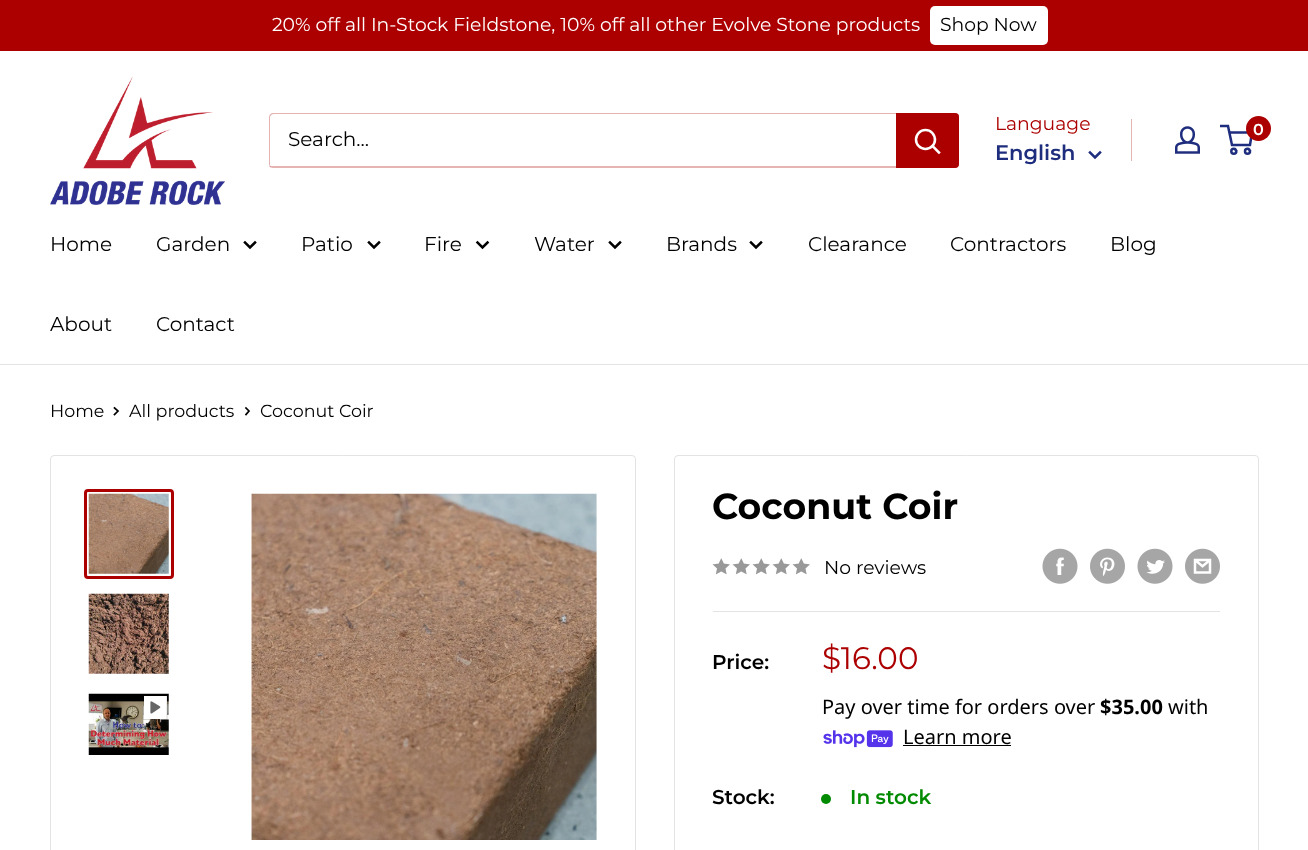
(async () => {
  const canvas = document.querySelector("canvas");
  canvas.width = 1308;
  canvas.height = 850;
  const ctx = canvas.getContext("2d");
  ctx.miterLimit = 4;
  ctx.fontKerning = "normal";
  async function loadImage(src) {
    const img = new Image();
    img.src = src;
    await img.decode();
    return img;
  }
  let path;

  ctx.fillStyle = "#ffffff";
  ctx.fillRect(0, 0, 1308, 850);
  ctx.fillStyle = "#ac0000";
  ctx.fillRect(0, 0, 1308, 51);
  ctx.fillStyle = "#ffffff";
  ctx.beginPath();
  ctx.roundRect(930, 6, 118, 39, 5);
  ctx.fill();
  ctx.drawImage(await loadImage("img/1.png"), 50, 76, 175, 129);
  ctx.fillStyle = "#e6b3b3";
  path = new Path2D("M269 166C270 167 271 168 273 168H955C957 168 959 166 959 164V117C959 116 959 115 958 114V154C958 157 960 166 954 166H271Z");
  ctx.fill(path);
  ctx.fillStyle = "rgba(172, 0, 0, 0.3)";
  path = new Path2D("M274 114H956H958C957 114 956 113 955 113H273C271 113 269 115 269 117V164C269 165 270 167 271 167L270 165V118C270 115 272 114 274 114Z");
  ctx.fill(path);
  ctx.fillStyle = "#ac0000";
  ctx.beginPath();
  ctx.roundRect(896, 113, 63, 55, [0, 4, 4, 0]);
  ctx.fill();
  path = new Path2D("M939 152.5L932.5 146");
  ctx.strokeStyle = "#ffffff";
  ctx.lineWidth = 2.5;
  ctx.lineCap = "square";
  ctx.stroke(path);
  ctx.beginPath();
  ctx.arc(925.5, 139.5, 9.5, 0, Math.PI * 2);
  ctx.stroke();
  path = new Path2D("M1100 152.5L1095 157.5L1090 152.5");
  ctx.strokeStyle = "#1e2d7d";
  ctx.stroke(path);
  ctx.fillStyle = "#e6b3b3";
  ctx.fillRect(1131, 119, 1, 42);
  ctx.drawImage(await loadImage("img/2.png"), 1175, 126, 25, 28);
  ctx.beginPath();
  ctx.arc(1233.8, 151.2, 2.5, 0, Math.PI * 2);
  ctx.stroke();
  ctx.beginPath();
  ctx.arc(1247.5, 151.2, 2.5, 0, Math.PI * 2);
  ctx.stroke();
  path = new Path2D("M1229 132.5H1252L1250 145H1232L1228 126H1220");
  ctx.lineCap = "butt";
  ctx.stroke(path);
  ctx.fillStyle = "#ac0000";
  ctx.beginPath();
  ctx.arc(1258.5, 128.5, 12.5, 0, Math.PI * 2);
  ctx.fill();
  ctx.fillStyle = "#e1e3e4";
  ctx.fillRect(0, 364, 1308, 1);
  path = new Path2D("M255 242.5L250 247.5L245 242.5");
  ctx.strokeStyle = "#000000";
  ctx.lineCap = "square";
  ctx.stroke(path);
  path = new Path2D("M379 242.5L374 247.5L369 242.5");
  ctx.stroke(path);
  path = new Path2D("M487.5 242.5L482.5 247.5L477.5 242.5");
  ctx.stroke(path);
  path = new Path2D("M620 242.5L615 247.5L610 242.5");
  ctx.stroke(path);
  path = new Path2D("M761 242.5L756 247.5L751 242.5");
  ctx.stroke(path);
  path = new Path2D("M114.5 408L118 411L114.5 414.5");
  ctx.lineWidth = 1.7;
  ctx.stroke(path);
  path = new Path2D("M246 408L249 411L246 414.5");
  ctx.stroke(path);
  ctx.beginPath();
  ctx.roundRect(50.5, 455.5, 585, 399, 3.5);
  ctx.strokeStyle = "#e1e3e4";
  ctx.lineWidth = 1;
  ctx.stroke();
  ctx.beginPath();
  ctx.roundRect(85.5, 490.5, 87, 87, 2.5);
  ctx.strokeStyle = "#ac0000";
  ctx.lineWidth = 3;
  ctx.stroke();
  ctx.drawImage(await loadImage("img/3.png"), 88, 493, 81, 81);
  ctx.drawImage(await loadImage("img/4.png"), 88, 593, 81, 81);
  ctx.drawImage(await loadImage("img/5.png"), 88, 693, 81, 62);
  ctx.drawImage(await loadImage("img/6.png"), 143, 696, 25, 24);
  ctx.drawImage(await loadImage("img/7.png"), 251, 493, 346, 347);
  ctx.beginPath();
  ctx.roundRect(674.5, 455.5, 584, 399, 3.5);
  ctx.strokeStyle = "#e1e3e4";
  ctx.lineWidth = 1;
  ctx.stroke();
  ctx.drawImage(await loadImage("img/8.png"), 712, 558, 18, 17);
  ctx.drawImage(await loadImage("img/8.png"), 732, 558, 18, 17);
  ctx.drawImage(await loadImage("img/8.png"), 752, 558, 18, 17);
  ctx.drawImage(await loadImage("img/8.png"), 772, 558, 18, 17);
  ctx.drawImage(await loadImage("img/8.png"), 792, 558, 18, 17);
  ctx.drawImage(await loadImage("img/9.png"), 1042, 548, 36, 36);
  ctx.drawImage(await loadImage("img/10.png"), 1090, 548, 35, 36);
  ctx.drawImage(await loadImage("img/11.png"), 1137, 548, 36, 36);
  ctx.drawImage(await loadImage("img/12.png"), 1185, 548, 35, 36);
  ctx.fillRect(713, 611, 507, 1);
  ctx.drawImage(await loadImage("img/13.png"), 823, 730, 70, 18);
  ctx.fillStyle = "#000000";
  ctx.fillRect(903, 745, 108, 1);
  ctx.fillStyle = "#008a00";
  ctx.beginPath();
  ctx.arc(826, 799, 5, 0, Math.PI * 2);
  ctx.fill();
  ctx.font = "18.75px Montserrat";
  ctx.fillStyle = "#ffffff";
  ctx.fillText("20% off all In-Stock Fieldstone, 10% off all other Evolve Stone products", 272, 31);
  ctx.fillStyle = "#000000";
  ctx.fillText("Shop Now", 940, 31);
  ctx.font = "20px Montserrat";
  ctx.fillText("Search...", 288, 146);
  ctx.font = "18.75px Montserrat";
  ctx.fillStyle = "#ac0000";
  ctx.fillText("Language", 995, 130);
  ctx.font = "600 21px Montserrat";
  ctx.fillStyle = "#1e2d7d";
  ctx.fillText("English", 995, 160);
  ctx.font = "600 16px Montserrat";
  ctx.fillStyle = "#ffffff";
  ctx.fillText("0", 1253, 135);
  ctx.font = "20px Montserrat";
  ctx.fillStyle = "#000000";
  for (const [text, x, y] of [
    ["Home", 50, 251],
    ["Garden", 156, 251],
    ["Patio", 301, 251],
    ["Fire", 424, 251],
    ["Water", 534, 251],
    ["Brands", 666, 251],
    ["Clearance", 808, 251],
    ["Contractors", 950, 251],
    ["Blog", 1110, 251],
    ["About", 50, 331],
    ["Contact", 156, 331],
  ]) {
    ctx.fillText(text, x, y);
  }
  ctx.font = "17.5px Montserrat";
  for (const [text, x, y] of [
    ["Home", 50, 417],
    ["All products", 129, 417],
    ["Coconut Coir", 260, 417],
  ]) {
    ctx.fillText(text, x, y);
  }
  ctx.font = "bold 36.25px Montserrat";
  ctx.fillText("Coconut Coir", 712, 519);
  ctx.font = "18.75px Montserrat";
  ctx.fillText("No reviews", 824, 574);
  ctx.font = "600 20px Montserrat";
  ctx.fillText("Price:", 712, 669);
  ctx.font = "31px Montserrat";
  ctx.fillStyle = "#ac0000";
  ctx.fillText("$16.00", 822, 669);
  ctx.font = "20px Noto Sans";
  ctx.fillStyle = "#000000";
  ctx.fillText("Pay over time for orders over", 822, 714);
  ctx.font = "bold 20px Noto Sans";
  ctx.fillText("$35.00", 1100, 714);
  ctx.font = "20px Noto Sans";
  ctx.fillText("with", 1168, 714);
  ctx.fillText("Learn more", 903, 744);
  ctx.font = "600 20px Montserrat";
  ctx.fillText("Stock:", 712, 804);
  ctx.fillStyle = "#008a00";
  ctx.fillText("In stock", 850, 804);
})();
